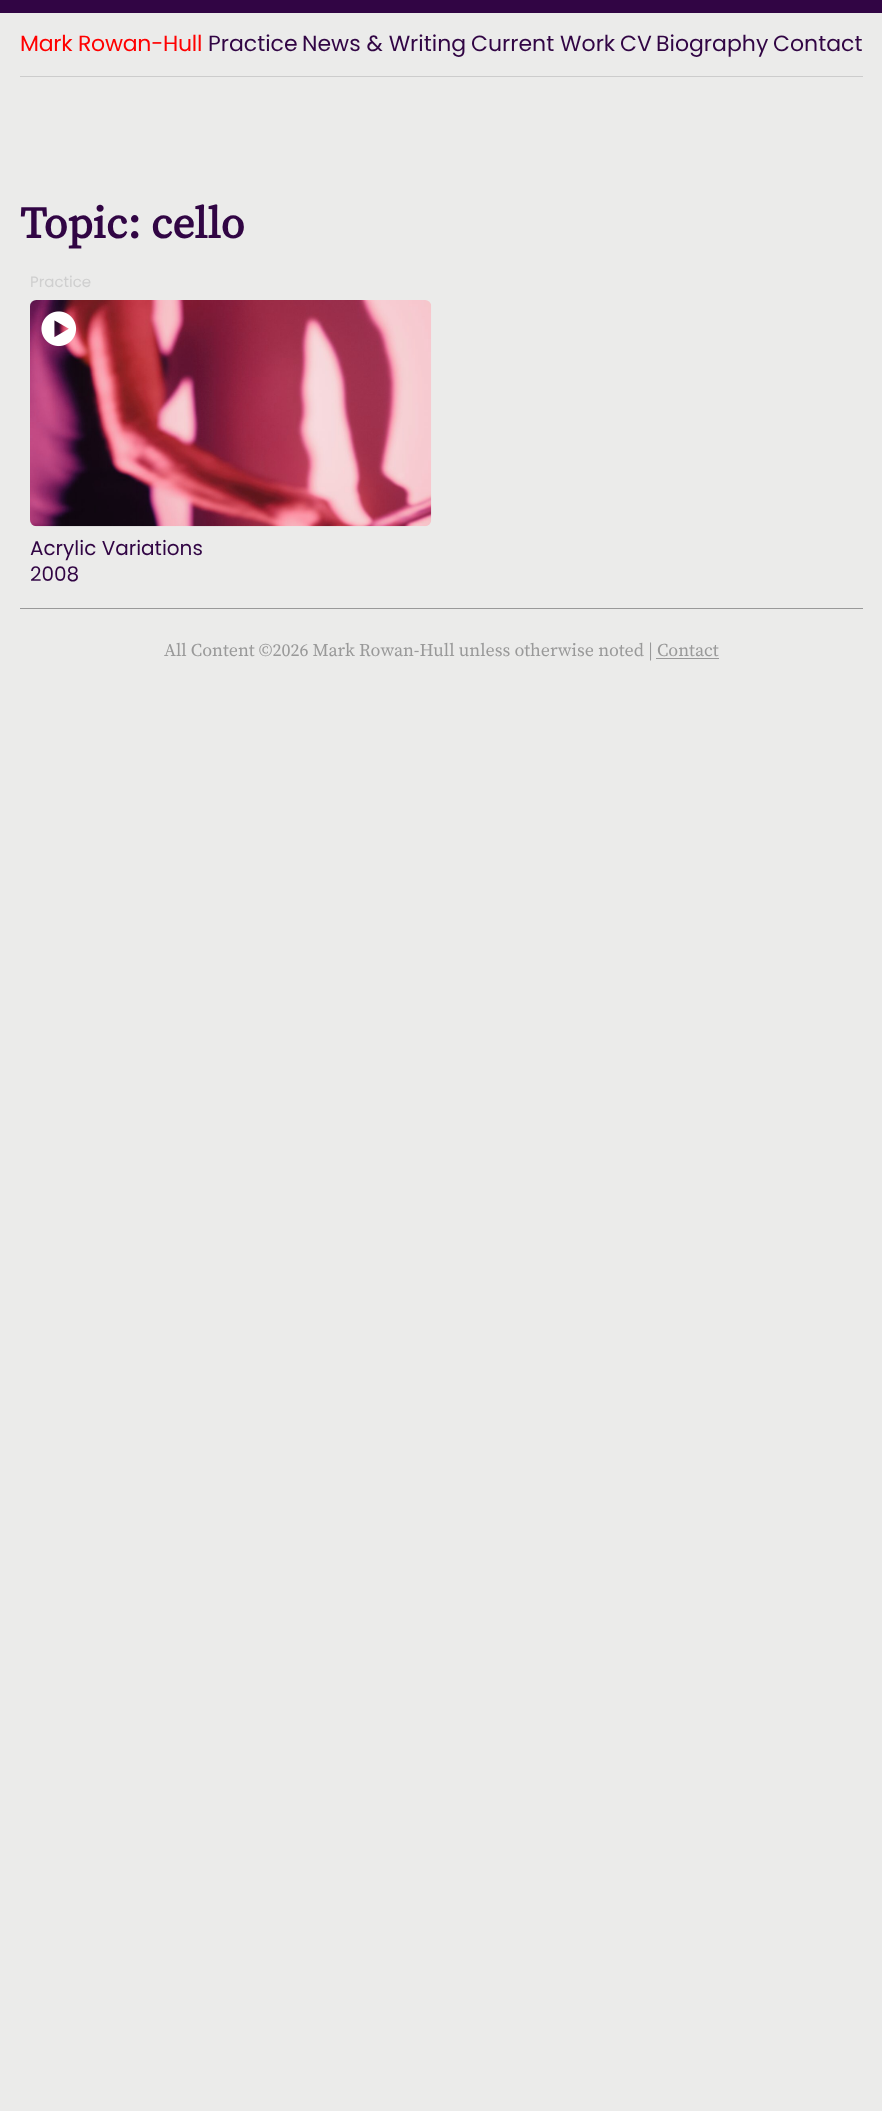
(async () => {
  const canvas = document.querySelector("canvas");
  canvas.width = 882;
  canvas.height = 2111;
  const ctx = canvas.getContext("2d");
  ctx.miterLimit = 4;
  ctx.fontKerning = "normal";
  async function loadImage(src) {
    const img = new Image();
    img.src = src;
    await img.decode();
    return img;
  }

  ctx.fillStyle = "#ebebea";
  ctx.fillRect(0, 0, 882, 2111);
  ctx.fillStyle = "#310544";
  ctx.fillRect(0, 0, 882, 13);
  ctx.fillStyle = "#cccccc";
  ctx.fillRect(20, 76, 843, 1);
  ctx.drawImage(await loadImage("img/1.png"), 30, 300, 402, 227);
  ctx.drawImage(await loadImage("img/2.png"), 41, 311, 36, 36);
  ctx.fillStyle = "#999999";
  ctx.fillRect(20, 608, 843, 1);
  ctx.fillRect(656, 658, 63, 1);
  ctx.letterSpacing = "-0.25px";
  ctx.font = "22px Poppins";
  ctx.fillStyle = "#ff0000";
  ctx.fillText("Mark Rowan-Hull", 20, 51);
  ctx.letterSpacing = "0px";
  ctx.fillStyle = "#310544";
  for (const [text, x, y] of [
    ["Practice", 208, 51],
    ["News & Writing", 302, 51],
    ["Current Work", 471, 51],
    ["CV", 620, 51],
    ["Biography", 656, 51],
    ["Contact", 773, 51],
  ]) {
    ctx.fillText(text, x, y);
  }
  ctx.font = "bold 44px Source Serif Pro";
  ctx.fillText("Topic: cello", 20, 238);
  ctx.font = "15px Poppins";
  ctx.fillStyle = "#cfcfcf";
  ctx.fillText("Practice", 30, 287);
  ctx.font = "20px Poppins";
  ctx.fillStyle = "#310544";
  ctx.fillText("Acrylic Variations", 30, 555);
  ctx.fillText("2008", 30, 581);
  ctx.font = "18px Source Serif Pro";
  ctx.fillStyle = "#999999";
  ctx.fillText("All Content ©2026 Mark Rowan-Hull unless otherwise noted |", 164, 656);
  ctx.fillText("Contact", 657, 656);
})();
